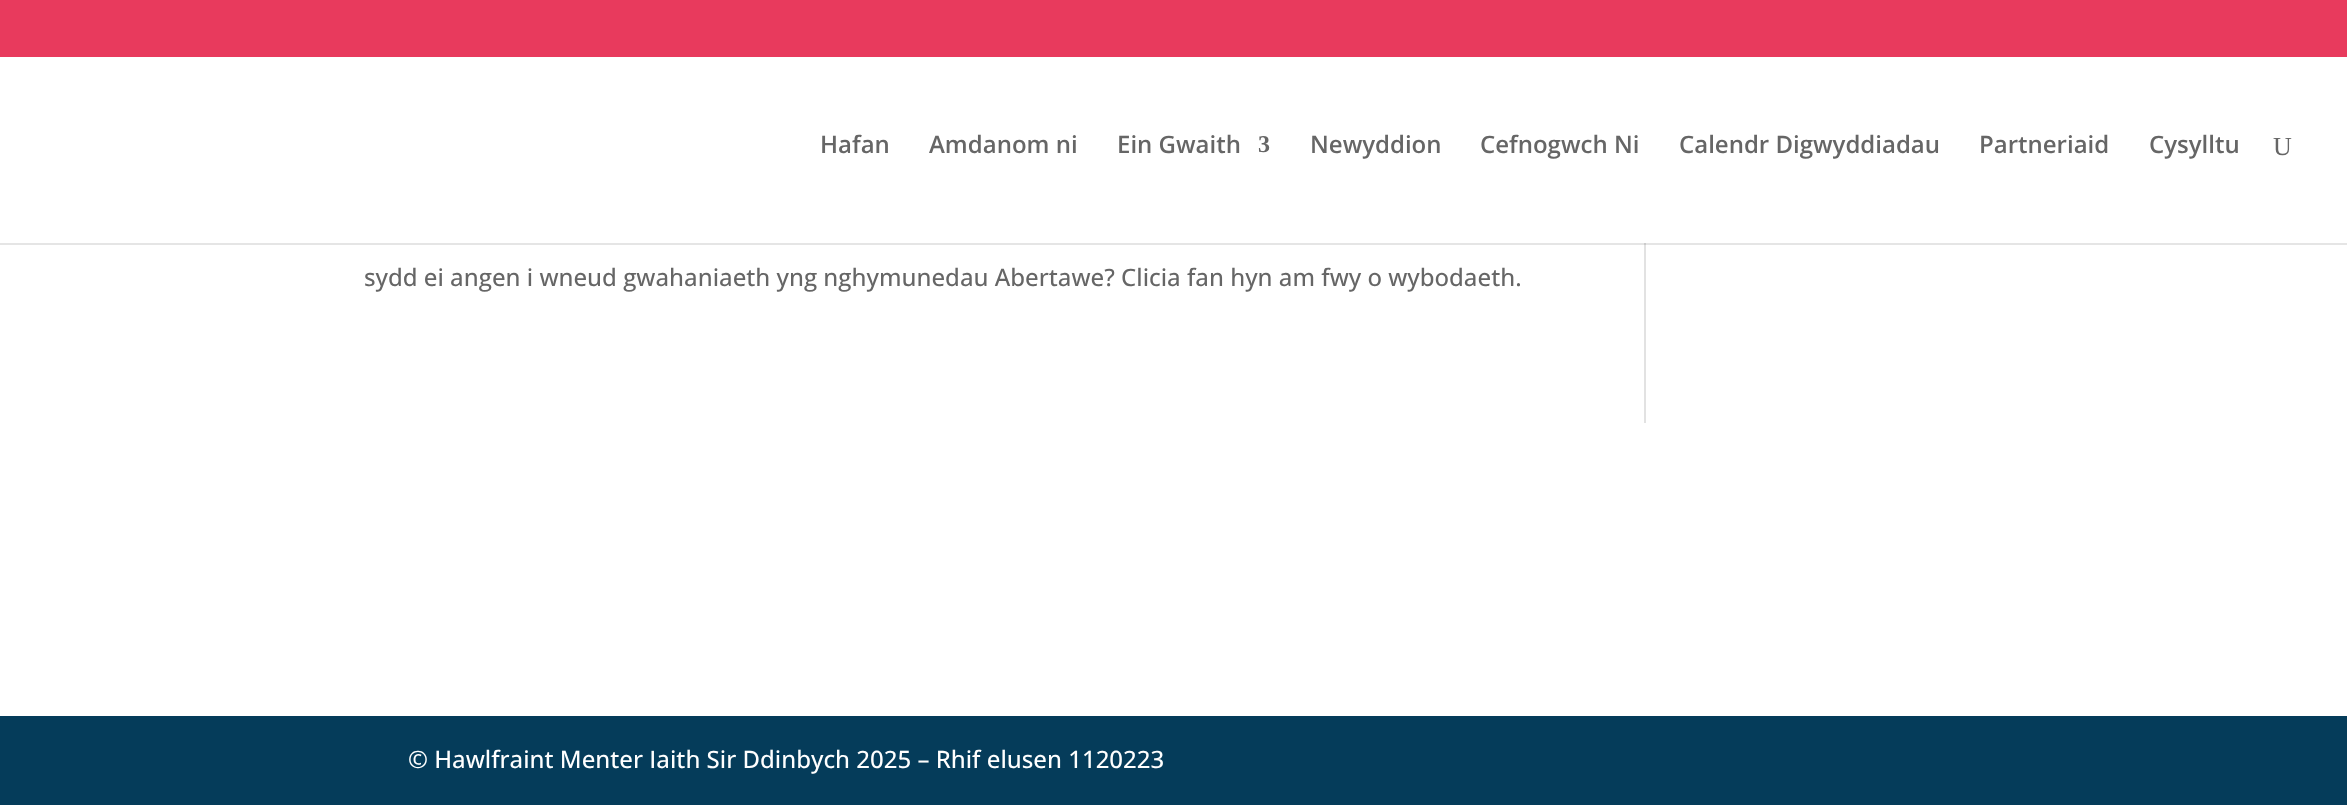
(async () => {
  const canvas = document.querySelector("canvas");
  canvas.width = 2347;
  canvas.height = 805;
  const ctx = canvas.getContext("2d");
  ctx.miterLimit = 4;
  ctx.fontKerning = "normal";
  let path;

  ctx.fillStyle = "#ffffff";
  ctx.fillRect(0, 0, 2347, 805);
  ctx.fillStyle = "#e83a5d";
  ctx.fillRect(0, 0, 2347, 57);
  ctx.fillStyle = "#e2e2e2";
  ctx.fillRect(1644, 243, 2, 180);
  ctx.fillStyle = "rgba(0, 0, 0, 0.1)";
  path = new Path2D("M0 243V245H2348V47V243Z");
  ctx.fill(path);
  ctx.fillStyle = "#053c5a";
  ctx.fillRect(0, 716, 2347, 89);
  ctx.font = "600 24px Open Sans";
  ctx.fillStyle = "#666666";
  for (const [text, x, y] of [
    ["Hafan", 820, 153],
    ["Amdanom ni", 929, 153],
    ["Ein Gwaith", 1117, 153],
  ]) {
    ctx.fillText(text, x, y);
  }
  ctx.font = "bold 24px Liberation Serif";
  ctx.fillText("3", 1258, 152);
  ctx.font = "600 24px Open Sans";
  for (const [text, x, y] of [
    ["Newyddion", 1310, 153],
    ["Cefnogwch Ni", 1480, 153],
    ["Calendr Digwyddiadau", 1679, 153],
    ["Partneriaid", 1979, 153],
    ["Cysylltu", 2149, 153],
  ]) {
    ctx.fillText(text, x, y);
  }
  ctx.font = "26px Liberation Serif";
  ctx.fillText("U", 2273, 155);
  ctx.font = "500 24px Open Sans";
  ctx.fillText("sydd ei angen i wneud gwahaniaeth yng nghymunedau Abertawe? Clicia fan hyn am fwy o wybodaeth.", 364, 286);
  ctx.fillStyle = "#ffffff";
  ctx.fillText("© Hawlfraint Menter Iaith Sir Ddinbych 2025 – Rhif elusen 1120223", 408, 768);
})();
